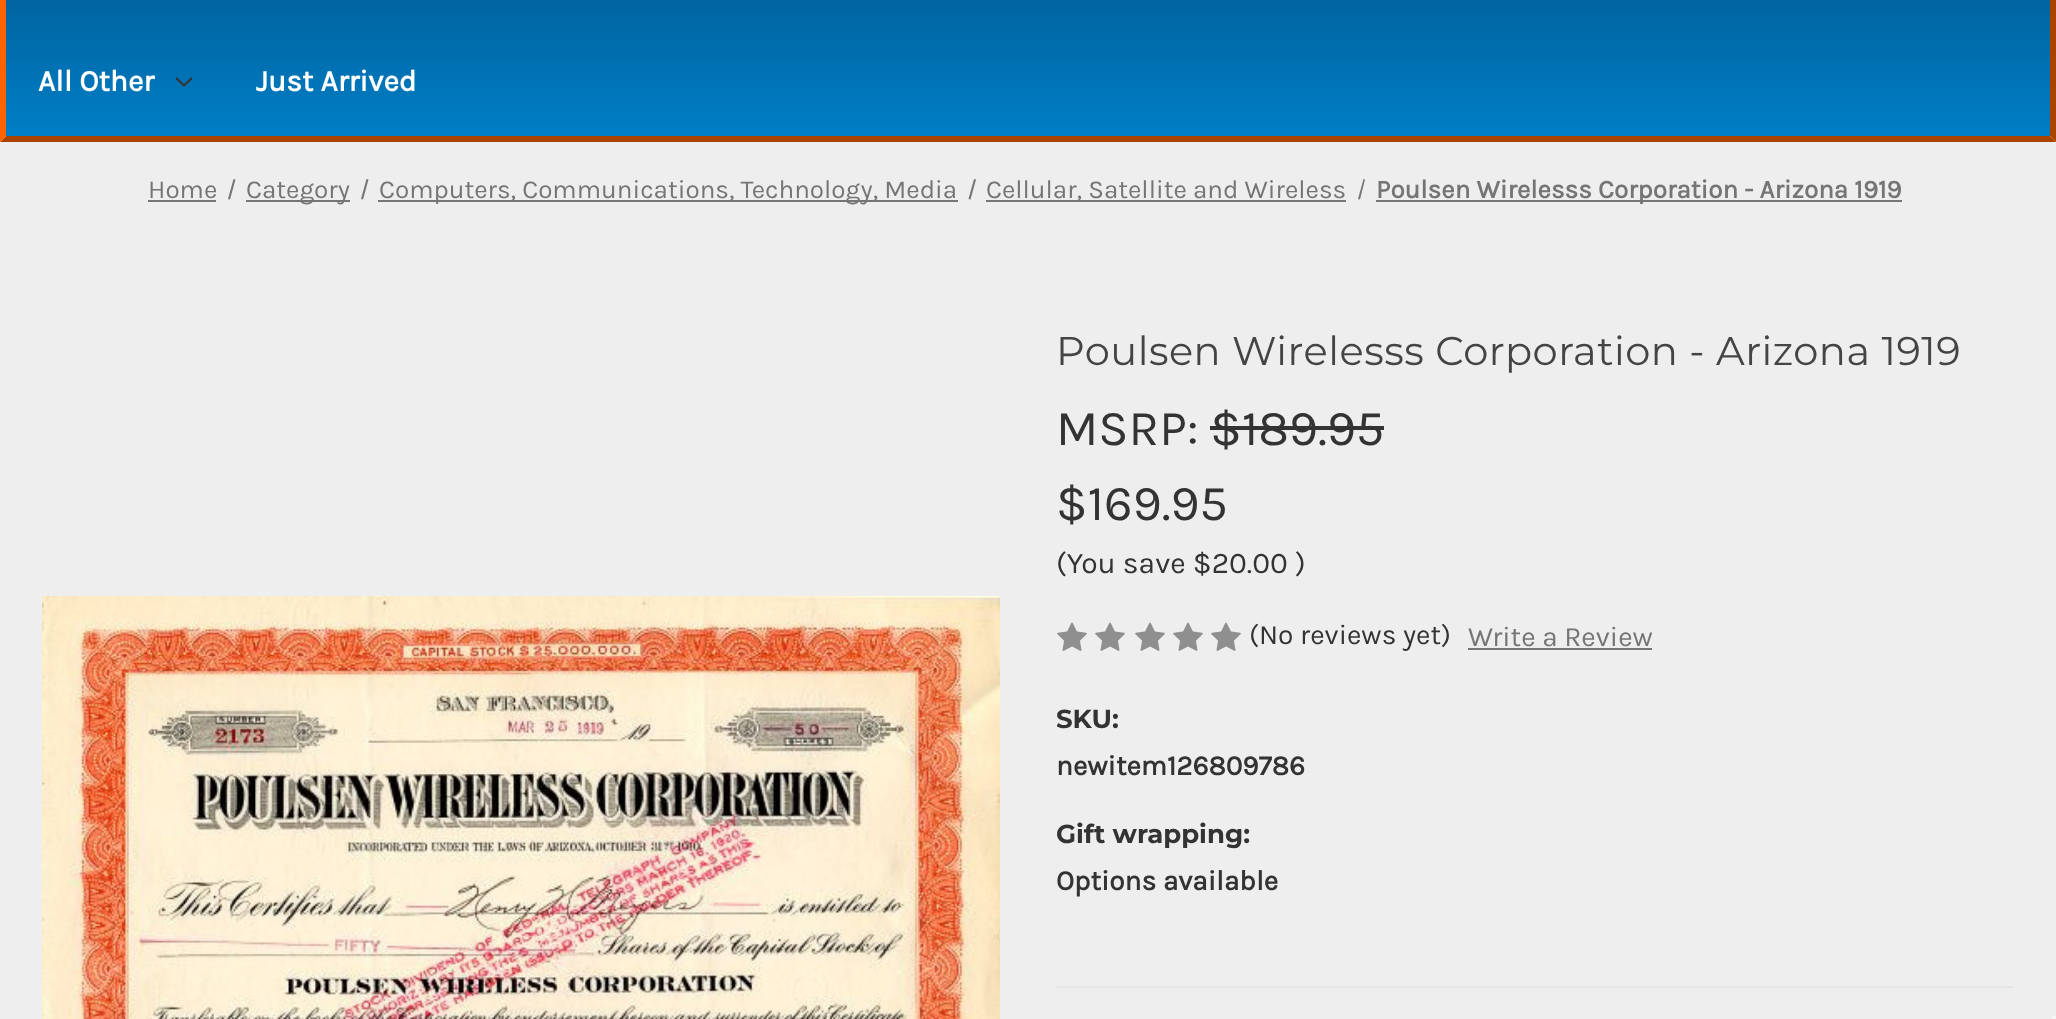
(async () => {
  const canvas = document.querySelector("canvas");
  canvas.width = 2056;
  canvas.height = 1019;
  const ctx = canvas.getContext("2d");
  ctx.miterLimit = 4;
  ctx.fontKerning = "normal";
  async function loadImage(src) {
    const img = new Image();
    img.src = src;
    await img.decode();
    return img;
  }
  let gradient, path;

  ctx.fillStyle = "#ffffff";
  ctx.fillRect(0, 0, 2056, 1019);
  ctx.fillStyle = "#aa4200";
  path = new Path2D("M2056 142V-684C2056-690 2053-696 2049-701L2045-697C2048-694 2050-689 2050-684V136Z");
  ctx.fill(path);
  path = new Path2D("M2056 142L2050 136H6L0 142Z");
  ctx.fill(path);
  ctx.fillStyle = "#ff6300";
  path = new Path2D("M0 142L6 136V-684C6-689 8-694 11-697L7-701C3-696 0-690 0-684Z");
  ctx.fill(path);
  gradient = ctx.createLinearGradient(1028, -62, 1028, 136);
  gradient.addColorStop(0, "#00598f");
  gradient.addColorStop(1, "#007ec6");
  ctx.fillStyle = gradient;
  ctx.fillRect(6, 0, 2044, 136);
  ctx.drawImage(await loadImage("img/1.png"), 176, 77, 16, 10);
  ctx.fillStyle = "#eeeeee";
  ctx.fillRect(0, 142, 2056, 877);
  ctx.fillStyle = "#757575";
  ctx.fillRect(148, 200, 68, 2);
  path = new Path2D("M233.5 179L235.5 179.5L230 199.5L228 199Z");
  ctx.fill(path);
  ctx.fillRect(246, 200, 104, 2);
  path = new Path2D("M366.5 179L368.5 179.5L363 199.5L361 199Z");
  ctx.fill(path);
  ctx.fillRect(378, 200, 580, 2);
  path = new Path2D("M974 179L976 179.5L970.5 199.5L968.5 199Z");
  ctx.fill(path);
  ctx.fillRect(986, 200, 360, 2);
  path = new Path2D("M1363.5 179L1365 179.5L1360 199.5L1358 199Z");
  ctx.fill(path);
  ctx.fillRect(1376, 200, 526, 2);
  ctx.drawImage(await loadImage("img/2.png"), 42, 596, 958, 423);
  ctx.fillStyle = "#e5e5e5";
  ctx.fillRect(1056, 986, 958, 2);
  ctx.fillStyle = "#333333";
  ctx.fillRect(1210, 426, 174, 4);
  ctx.drawImage(await loadImage("img/3.png"), 1057, 622, 30, 29);
  ctx.drawImage(await loadImage("img/3.png"), 1095, 622, 30, 29);
  ctx.drawImage(await loadImage("img/3.png"), 1135, 622, 30, 29);
  ctx.drawImage(await loadImage("img/3.png"), 1173, 622, 30, 29);
  ctx.drawImage(await loadImage("img/3.png"), 1211, 622, 30, 29);
  ctx.fillStyle = "#757575";
  ctx.fillRect(1468, 648, 184, 2);
  ctx.fillStyle = "#f5f5f5";
  ctx.fillRect(2052, 1016, 4, 3);
  ctx.font = "bold 30px Karla";
  ctx.fillStyle = "#ffffff";
  ctx.fillText("All Other", 38, 91);
  ctx.fillText("Just Arrived", 256, 91);
  ctx.font = "26px Karla";
  ctx.fillStyle = "#757575";
  for (const [text, x, y] of [
    ["Home", 148, 198],
    ["Category", 246, 198],
    ["Computers, Communications, Technology, Media", 379, 198],
    ["Cellular, Satellite and Wireless", 986, 198],
  ]) {
    ctx.fillText(text, x, y);
  }
  ctx.font = "bold 26px Karla";
  ctx.fillText("Poulsen Wirelesss Corporation - Arizona 1919", 1376, 198);
  ctx.letterSpacing = "0.5px";
  ctx.font = "40px Montserrat";
  ctx.fillStyle = "#444444";
  ctx.fillText("Poulsen Wirelesss Corporation - Arizona 1919", 1056, 365);
  ctx.letterSpacing = "0px";
  ctx.font = "50px Karla";
  ctx.fillStyle = "#333333";
  ctx.fillText("MSRP: $189.95", 1056, 445);
  ctx.fillText("$169.95", 1056, 520);
  ctx.font = "30px Karla";
  ctx.fillText("(You save $20.00 )", 1056, 573);
  ctx.font = "28px Karla";
  ctx.fillText("(No reviews yet)", 1249, 644);
  ctx.fillStyle = "#757575";
  ctx.fillText("Write a Review", 1468, 646);
  ctx.font = "bold 26px Montserrat";
  ctx.fillStyle = "#333333";
  ctx.fillText("SKU:", 1056, 728);
  ctx.font = "bold 28px Karla";
  ctx.fillText("newitem126809786", 1056, 775);
  ctx.font = "bold 26px Montserrat";
  ctx.fillText("Gift wrapping:", 1056, 843);
  ctx.font = "bold 28px Karla";
  ctx.fillText("Options available", 1056, 890);
})();
